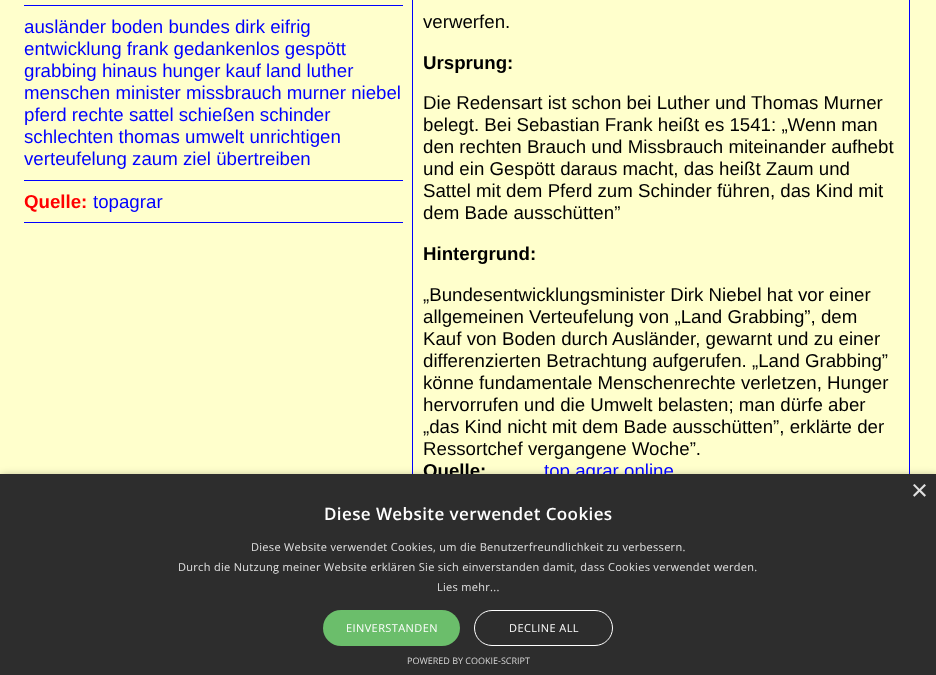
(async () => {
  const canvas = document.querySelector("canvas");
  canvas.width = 936;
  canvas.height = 675;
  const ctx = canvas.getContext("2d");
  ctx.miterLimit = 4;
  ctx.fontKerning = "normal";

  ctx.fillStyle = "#ffffcc";
  ctx.fillRect(0, 0, 936, 675);
  for (const [x, y, w, h, color] of [
    [24, 5, 379, 1, "#0000ff"],
    [24, 180, 379, 1, "#0000ff"],
    [24, 222, 379, 1, "#0000ff"],
  ]) {
    ctx.fillStyle = color;
    ctx.fillRect(x, y, w, h);
  }
  ctx.strokeStyle = "#0000ff";
  ctx.strokeRect(412.5, -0.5, 497, 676);
  ctx.fillStyle = "rgba(0, 0, 0, 0.35)";
  ctx.filter = "blur(4px)";
  ctx.beginPath();
  ctx.rect(1, 476, 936, 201);
  ctx.fill();
  ctx.filter = "none";
  ctx.font = "18.7px Liberation Sans";
  ctx.fillStyle = "#0000ff";
  for (const [text, x, y] of [
    ["ausländer boden bundes dirk eifrig", 24, 33],
    ["entwicklung frank gedankenlos gespött", 24, 55],
    ["grabbing hinaus hunger kauf land luther", 24, 77],
    ["menschen minister missbrauch murner niebel", 24, 99],
    ["pferd rechte sattel schießen schinder", 24, 121],
    ["schlechten thomas umwelt unrichtigen", 24, 143],
    ["verteufelung zaum ziel übertreiben", 24, 165],
  ]) {
    ctx.fillText(text, x, y);
  }
  ctx.font = "bold 18.7px Liberation Sans";
  ctx.fillStyle = "#ff0000";
  ctx.fillText("Quelle:", 24, 208);
  ctx.font = "18.7px Liberation Sans";
  ctx.fillStyle = "#0000ff";
  ctx.fillText("topagrar", 93, 208);
  ctx.fillStyle = "#000000";
  ctx.fillText("verwerfen.", 423, 28);
  ctx.font = "bold 18.7px Liberation Sans";
  ctx.fillText("Ursprung:", 423, 69);
  ctx.font = "18.7px Liberation Sans";
  for (const [text, x, y] of [
    ["Die Redensart ist schon bei Luther und Thomas Murner", 423, 109],
    ["belegt. Bei Sebastian Frank heißt es 1541: „Wenn man", 423, 131],
    ["den rechten Brauch und Missbrauch miteinander aufhebt", 423, 153],
    ["und ein Gespött daraus macht, das heißt Zaum und", 423, 175],
    ["Sattel mit dem Pferd zum Schinder führen, das Kind mit", 423, 197],
    ["dem Bade ausschütten”", 423, 219],
  ]) {
    ctx.fillText(text, x, y);
  }
  ctx.font = "bold 18.7px Liberation Sans";
  ctx.fillText("Hintergrund:", 423, 260);
  ctx.font = "18.7px Liberation Sans";
  for (const [text, x, y] of [
    ["„Bundesentwicklungsminister Dirk Niebel hat vor einer", 423, 301],
    ["allgemeinen Verteufelung von „Land Grabbing”, dem", 423, 323],
    ["Kauf von Boden durch Ausländer, gewarnt und zu einer", 423, 345],
    ["differenzierten Betrachtung aufgerufen. „Land Grabbing”", 423, 367],
    ["könne fundamentale Menschenrechte verletzen, Hunger", 423, 389],
    ["hervorrufen und die Umwelt belasten; man dürfe aber", 423, 411],
    ["„das Kind nicht mit dem Bade ausschütten”, erklärte der", 423, 433],
    ["Ressortchef vergangene Woche”.", 423, 455],
  ]) {
    ctx.fillText(text, x, y);
  }
  ctx.font = "bold 18.7px Liberation Sans";
  ctx.fillText("Quelle:", 423, 477);
  ctx.font = "18.7px Liberation Sans";
  ctx.fillStyle = "#0000ff";
  ctx.fillText("top agrar online", 544, 477);
  ctx.fillStyle = "#2d2d2d";
  ctx.fillRect(0, 474, 936, 201);
  ctx.font = "29px Liberation Sans";
  ctx.fillStyle = "#e0e0e0";
  ctx.fillText("×", 911, 500);
  ctx.letterSpacing = "0.4px";
  ctx.font = "600 17px Open Sans";
  ctx.fillStyle = "#ffffff";
  ctx.fillText("Diese Website verwendet Cookies", 324, 520);
  ctx.letterSpacing = "0.3px";
  ctx.font = "11px Open Sans";
  ctx.fillStyle = "#e0e0e0";
  for (const [text, x, y] of [
    ["Diese Website verwendet Cookies, um die Benutzerfreundlichkeit zu verbessern.", 251, 551],
    ["Durch die Nutzung meiner Website erklären Sie sich einverstanden damit, dass Cookies verwendet werden.", 178, 571],
    ["Lies mehr...", 437, 591],
  ]) {
    ctx.fillText(text, x, y);
  }
  ctx.fillStyle = "#6bbe6b";
  ctx.beginPath();
  ctx.roundRect(323, 610, 137, 36, 18);
  ctx.fill();
  ctx.letterSpacing = "0.4px";
  ctx.fillStyle = "#ffffff";
  ctx.fillText("EINVERSTANDEN", 346, 632);
  ctx.beginPath();
  ctx.roundRect(474.5, 610.5, 138, 35, 17.5);
  ctx.strokeStyle = "#ffffff";
  ctx.stroke();
  ctx.fillText("DECLINE ALL", 509, 632);
  ctx.letterSpacing = "0px";
  ctx.font = "9px Open Sans";
  ctx.fillStyle = "#d5d5d5";
  ctx.fillText("POWERED BY COOKIE-SCRIPT", 407, 664);
})();
